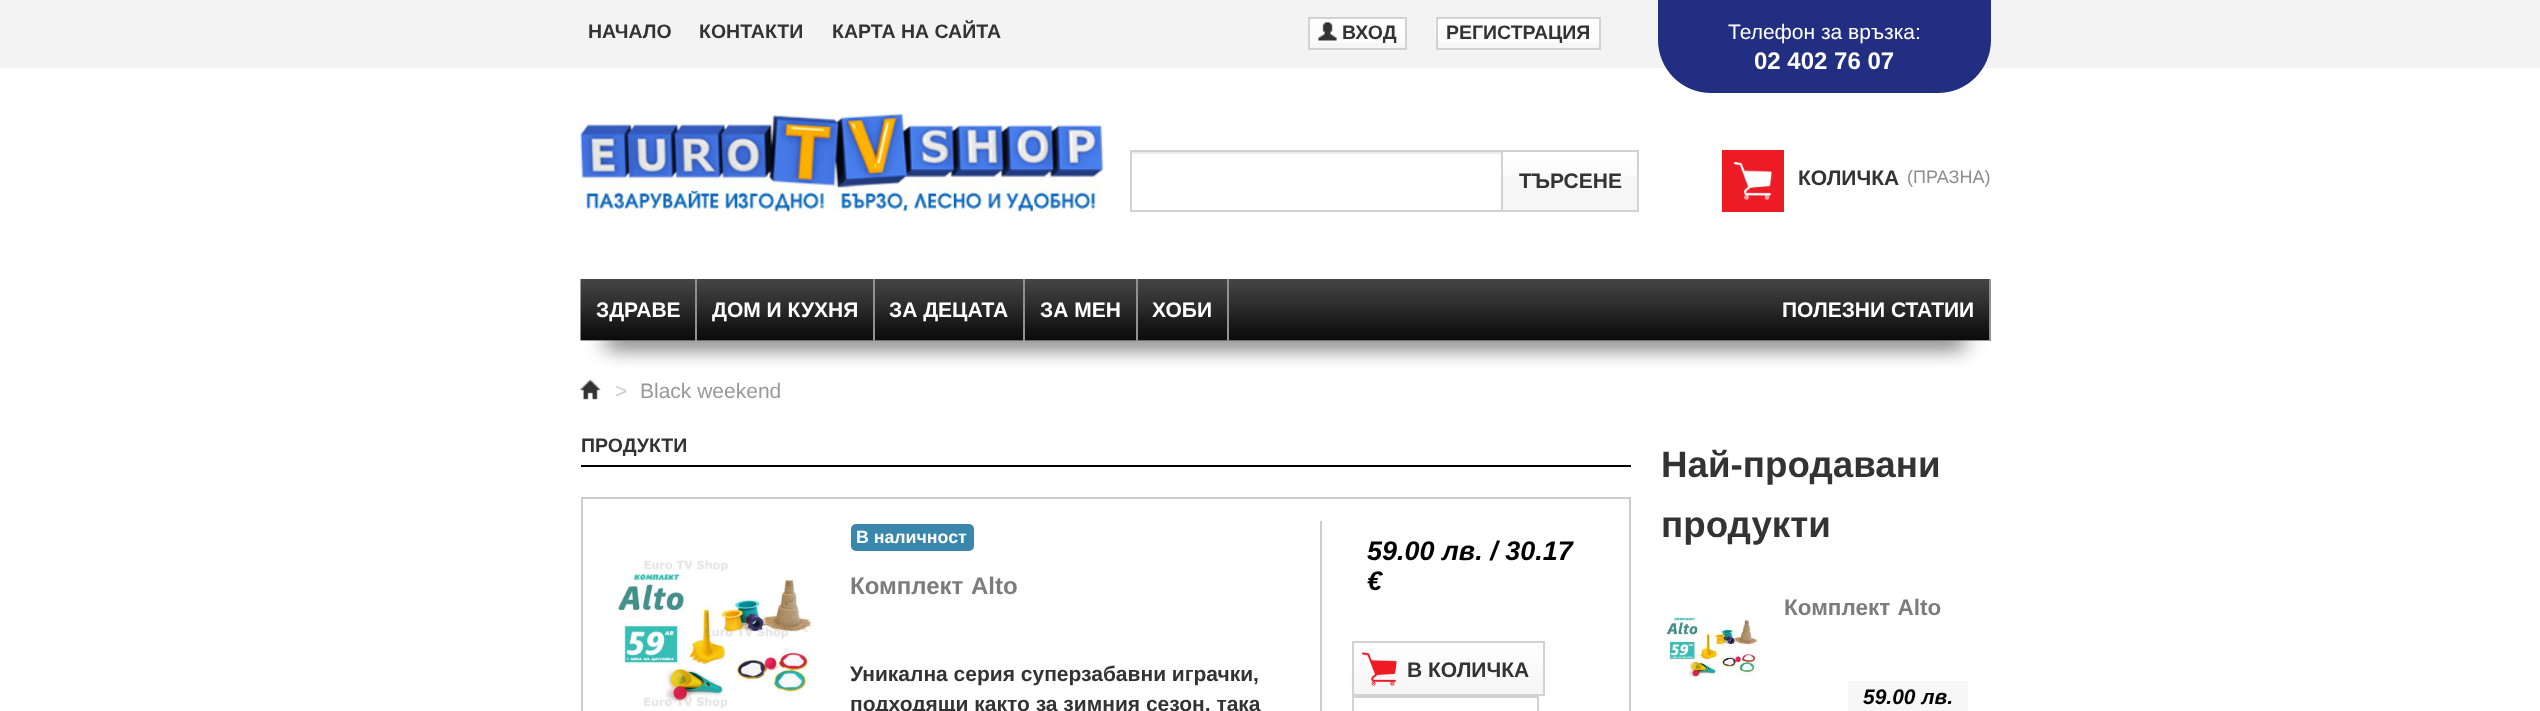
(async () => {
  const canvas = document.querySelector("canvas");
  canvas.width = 2540;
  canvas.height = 711;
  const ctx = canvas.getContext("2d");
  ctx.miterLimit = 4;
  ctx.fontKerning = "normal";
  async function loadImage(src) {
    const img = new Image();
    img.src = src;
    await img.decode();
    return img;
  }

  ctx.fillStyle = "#ffffff";
  ctx.fillRect(0, 0, 2540, 711);
  ctx.fillStyle = "#f3f3f3";
  ctx.fillRect(0, 0, 2540, 68);
  ctx.fillStyle = "#f6f6f6";
  ctx.fillRect(1310, 43, 95, 5);
  ctx.drawImage(await loadImage("img/1.png"), 1310, 19, 95, 24);
  ctx.strokeStyle = "#d2d2d2";
  ctx.lineWidth = 2;
  ctx.strokeRect(1309, 18, 97, 31);
  ctx.drawImage(await loadImage("img/2.png"), 1318, 22, 19, 19);
  ctx.fillRect(1438, 43, 161, 5);
  ctx.drawImage(await loadImage("img/3.png"), 1435, 18, 164, 25);
  ctx.strokeRect(1437, 18, 163, 31);
  ctx.fillStyle = "#222e82";
  ctx.beginPath();
  ctx.roundRect(1658, 0, 333, 93, [0, 0, 53, 53]);
  ctx.fill();
  ctx.drawImage(await loadImage("img/4.png"), 580, 114, 524, 98);
  ctx.fillStyle = "#ececec";
  ctx.fillRect(1131, 152, 371, 2);
  ctx.strokeRect(1131, 151, 371, 60);
  ctx.fillStyle = "#f6f6f6";
  ctx.fillRect(1503, 176, 134, 34);
  ctx.drawImage(await loadImage("img/5.png"), 1503, 152, 134, 24);
  for (const [x, y, w, h, color] of [
    [1503, 150, 135, 2, "#d2d2d2"],
    [1637, 150, 2, 62, "#d2d2d2"],
    [1503, 210, 135, 2, "#d2d2d2"],
    [1722, 150, 62, 62, "#ed1b24"],
  ]) {
    ctx.fillStyle = color;
    ctx.fillRect(x, y, w, h);
  }
  ctx.drawImage(await loadImage("img/6.png"), 1734, 162, 38, 38);
  ctx.fillStyle = "#000000";
  ctx.filter = "blur(10.5px)";
  ctx.beginPath();
  ctx.rect(606, 335, 1359, 10);
  ctx.fill();
  ctx.filter = "none";
  ctx.drawImage(await loadImage("img/7.png"), 580, 279, 1409, 62);
  for (const [x, y, w, h, color] of [
    [695, 279, 2, 62, "#919191"],
    [873, 279, 2, 62, "#919191"],
    [1023, 279, 2, 62, "#919191"],
    [1136, 279, 2, 62, "#919191"],
    [1227, 279, 2, 62, "#919191"],
    [1989, 279, 2, 62, "#919191"],
  ]) {
    ctx.fillStyle = color;
    ctx.fillRect(x, y, w, h);
  }
  ctx.drawImage(await loadImage("img/8.png"), 580, 379, 21, 21);
  ctx.fillStyle = "#000000";
  ctx.fillRect(581, 465, 1050, 2);
  ctx.strokeStyle = "#cccccc";
  ctx.strokeRect(582, 498, 1048, 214);
  ctx.drawImage(await loadImage("img/9.png"), 616, 560, 196, 148);
  ctx.fillStyle = "#3a87ad";
  ctx.beginPath();
  ctx.roundRect(851, 524, 123, 27, 5);
  ctx.fill();
  ctx.fillStyle = "#cccccc";
  ctx.fillRect(1320, 521, 2, 190);
  ctx.fillStyle = "#f6f6f6";
  ctx.fillRect(1354, 691, 189, 3);
  ctx.drawImage(await loadImage("img/10.png"), 1351, 642, 192, 49);
  ctx.strokeStyle = "#d2d2d2";
  ctx.strokeRect(1353, 642, 191, 53);
  ctx.drawImage(await loadImage("img/11.png"), 1362, 652, 35, 34);
  ctx.strokeRect(1353, 697, 185, 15);
  ctx.drawImage(await loadImage("img/12.png"), 1662, 617, 99, 61);
  ctx.fillStyle = "#f7f7f7";
  ctx.fillRect(1848, 681, 120, 30);
  ctx.font = "bold 19.5px Liberation Sans";
  ctx.fillStyle = "#333333";
  for (const [text, x, y] of [
    ["НАЧАЛО", 588, 38],
    ["КОНТАКТИ", 699, 38],
    ["КАРТА НА САЙТА", 832, 38],
    ["ВХОД", 1342, 39],
    ["РЕГИСТРАЦИЯ", 1446, 39],
  ]) {
    ctx.fillText(text, x, y);
  }
  ctx.font = "21px Liberation Sans";
  ctx.fillStyle = "#ffffff";
  ctx.fillText("Телефон за връзка:", 1728, 39);
  ctx.font = "bold 24px Liberation Sans";
  ctx.fillText("02 402 76 07", 1754, 69);
  ctx.font = "bold 21px Liberation Sans";
  ctx.fillStyle = "#333333";
  ctx.fillText("ТЪРСЕНЕ", 1519, 188);
  ctx.fillText("КОЛИЧКА", 1798, 185);
  ctx.font = "18px Liberation Sans";
  ctx.fillStyle = "#8d8d8d";
  ctx.fillText("(ПРАЗНА)", 1907, 183);
  ctx.font = "bold 21px Liberation Sans";
  ctx.fillStyle = "#ffffff";
  for (const [text, x, y] of [
    ["ЗДРАВЕ", 596, 317],
    ["ДОМ И КУХНЯ", 712, 317],
    ["ЗА ДЕЦАТА", 889, 317],
    ["ЗА МЕН", 1040, 317],
    ["ХОБИ", 1152, 317],
    ["ПОЛЕЗНИ СТАТИИ", 1782, 317],
  ]) {
    ctx.fillText(text, x, y);
  }
  ctx.font = "21px Liberation Sans";
  ctx.fillStyle = "#cccccc";
  ctx.fillText(">", 615, 398);
  ctx.fillStyle = "#999999";
  ctx.fillText("Black weekend", 640, 398);
  ctx.font = "bold 19.5px Liberation Sans";
  ctx.fillStyle = "#333333";
  ctx.fillText("ПРОДУКТИ", 581, 452);
  ctx.font = "bold 17.75px Liberation Sans";
  ctx.fillStyle = "#ffffff";
  ctx.fillText("В наличност", 856, 543);
  ctx.wordSpacing = "1px";
  ctx.font = "bold 24px Liberation Sans";
  ctx.fillStyle = "#7c7c7c";
  ctx.fillText("Комплект Alto", 850, 594);
  ctx.wordSpacing = "0px";
  ctx.font = "bold 21px Liberation Sans";
  ctx.fillStyle = "#333333";
  ctx.fillText("Уникална серия суперзабавни играчки,", 850, 681);
  ctx.fillText("подходящи както за зимния сезон, така", 850, 711);
  ctx.font = "italic bold 27px Liberation Sans";
  ctx.fillStyle = "#000000";
  ctx.fillText("59.00 лв. / 30.17", 1367, 560);
  ctx.fillText("€", 1367, 590);
  ctx.font = "bold 21px Liberation Sans";
  ctx.fillStyle = "#333333";
  ctx.fillText("В КОЛИЧКА", 1407, 677);
  ctx.font = "bold 36.75px Liberation Sans";
  ctx.fillText("Най-продавани", 1661, 477);
  ctx.fillText("продукти", 1661, 537);
  ctx.wordSpacing = "1px";
  ctx.font = "bold 22.5px Liberation Sans";
  ctx.fillStyle = "#7c7c7c";
  ctx.fillText("Комплект Alto", 1784, 615);
  ctx.wordSpacing = "0px";
  ctx.font = "italic bold 21px Liberation Sans";
  ctx.fillStyle = "#000000";
  ctx.fillText("59.00 лв.", 1863, 704);
})();
